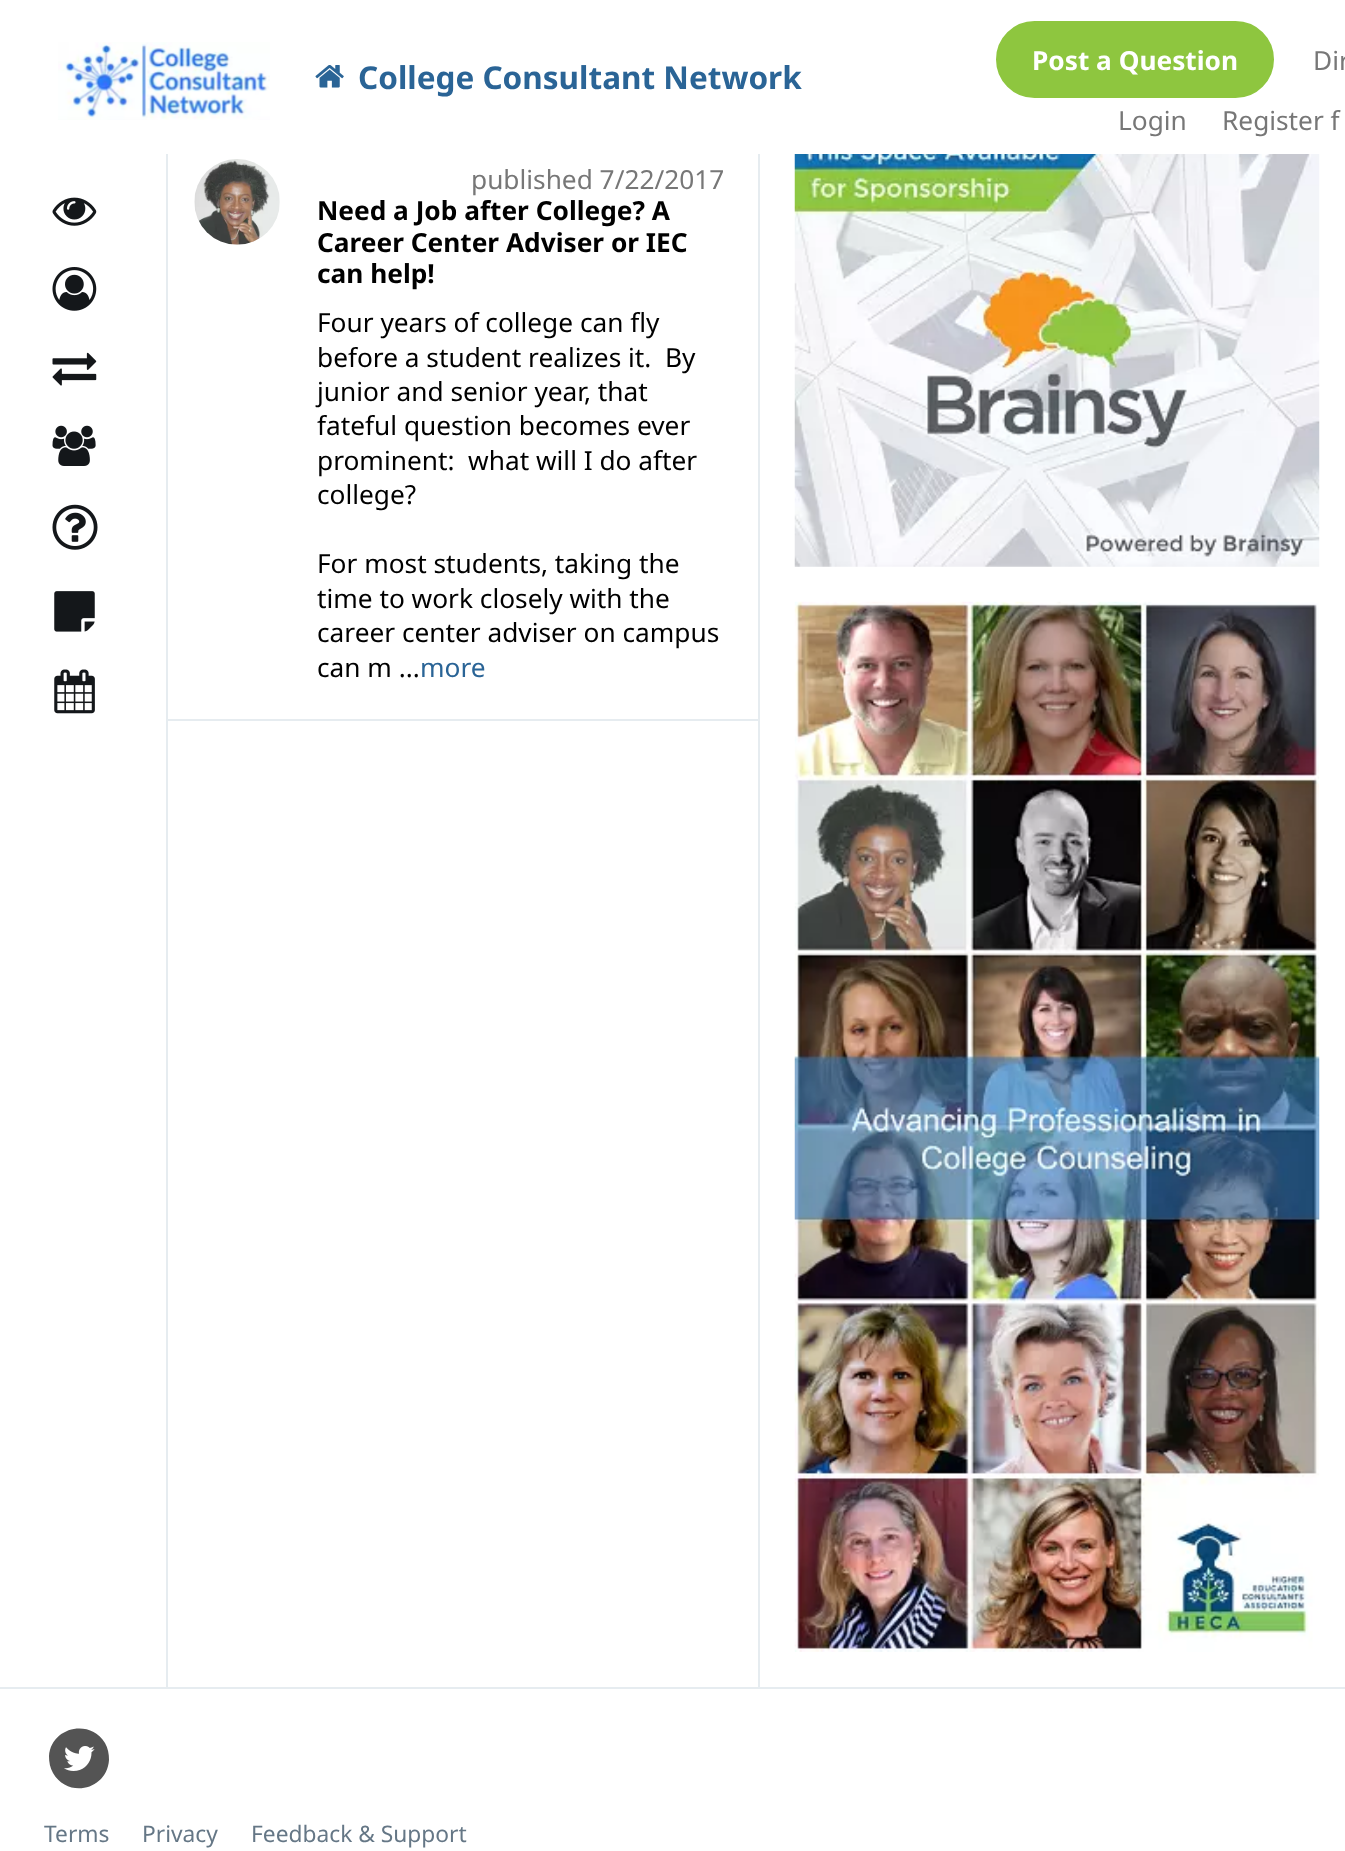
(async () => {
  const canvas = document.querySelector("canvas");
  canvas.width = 1345;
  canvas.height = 1851;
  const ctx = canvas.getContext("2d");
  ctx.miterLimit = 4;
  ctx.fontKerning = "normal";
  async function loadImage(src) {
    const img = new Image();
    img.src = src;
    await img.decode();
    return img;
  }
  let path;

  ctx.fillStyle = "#ffffff";
  ctx.fillRect(0, 0, 1345, 1851);
  ctx.drawImage(await loadImage("img/1.png"), 58, 42, 212, 78);
  ctx.drawImage(await loadImage("img/2.png"), 315, 65, 29, 23);
  ctx.fillStyle = "#8ec63f";
  ctx.beginPath();
  ctx.roundRect(997, 22, 276, 75, 37.5);
  ctx.fill();
  ctx.strokeStyle = "#8ec63f";
  ctx.lineWidth = 2;
  ctx.stroke();
  ctx.drawImage(await loadImage("img/3.png"), 52, 197, 45, 29);
  ctx.drawImage(await loadImage("img/4.png"), 52, 267, 45, 44);
  ctx.drawImage(await loadImage("img/5.png"), 52, 352, 45, 34);
  ctx.drawImage(await loadImage("img/6.png"), 52, 425, 44, 41);
  ctx.drawImage(await loadImage("img/7.png"), 52, 504, 46, 46);
  ctx.drawImage(await loadImage("img/8.png"), 54, 591, 41, 41);
  ctx.drawImage(await loadImage("img/9.png"), 54, 669, 41, 45);
  for (const [x, y, w, h, color] of [
    [758, 154, 2, 1533, "#e6ecf0"],
    [166, 154, 2, 1533, "#e6ecf0"],
    [168, 719, 590, 2, "#e6ecf0"],
  ]) {
    ctx.fillStyle = color;
    ctx.fillRect(x, y, w, h);
  }
  ctx.drawImage(await loadImage("img/10.png"), 194, 159, 86, 86);
  ctx.drawImage(await loadImage("img/11.png"), 794, 154, 526, 413);
  ctx.drawImage(await loadImage("img/12.png"), 794, 601, 526, 1051);
  ctx.fillRect(0, 1687, 1345, 2);
  ctx.fillStyle = "#545454";
  path = new Path2D("M105 1743C108 1748 109 1754 109 1760C107 1790 68 1799 53 1773C50 1768 49 1762 49 1756C51 1727 90 1718 105 1743Z");
  ctx.fill(path);
  ctx.drawImage(await loadImage("img/13.png"), 64, 1746, 31, 25);
  ctx.font = "bold 31.5px Noto Sans";
  ctx.fillStyle = "#2a6496";
  ctx.fillText("College Consultant Network", 358, 89);
  ctx.font = "bold 26.25px Noto Sans";
  ctx.fillStyle = "#ffffff";
  ctx.fillText("Post a Question", 1032, 70);
  ctx.font = "26.25px Noto Sans";
  ctx.fillStyle = "#777777";
  for (const [text, x, y] of [
    ["Dir", 1313, 70],
    ["Login", 1118, 130],
    ["Register f", 1222, 130],
    ["published 7/22/2017", 471, 189],
  ]) {
    ctx.fillText(text, x, y);
  }
  ctx.font = "bold 26.25px Noto Sans";
  ctx.fillStyle = "#000000";
  for (const [text, x, y] of [
    ["Need a Job after College? A", 317, 220],
    ["Career Center Adviser or IEC", 317, 252],
    ["can help!", 317, 283],
  ]) {
    ctx.fillText(text, x, y);
  }
  ctx.font = "26.25px Noto Sans";
  for (const [text, x, y] of [
    ["Four years of college can fly", 317, 332],
    ["before a student realizes it.  By", 317, 367],
    ["junior and senior year, that", 317, 401],
    ["fateful question becomes ever", 317, 435],
    ["prominent:  what will I do after", 317, 470],
    ["college?", 317, 504],
    ["For most students, taking the", 317, 573],
    ["time to work closely with the", 317, 608],
    ["career center adviser on campus", 317, 642],
    ["can m ...", 317, 677],
  ]) {
    ctx.fillText(text, x, y);
  }
  ctx.fillStyle = "#2a6496";
  ctx.fillText("more", 420, 677);
  ctx.font = "22.75px Noto Sans";
  ctx.fillStyle = "#657786";
  for (const [text, x, y] of [
    ["Terms", 44, 1842],
    ["Privacy", 142, 1842],
    ["Feedback & Support", 251, 1842],
  ]) {
    ctx.fillText(text, x, y);
  }
})();
